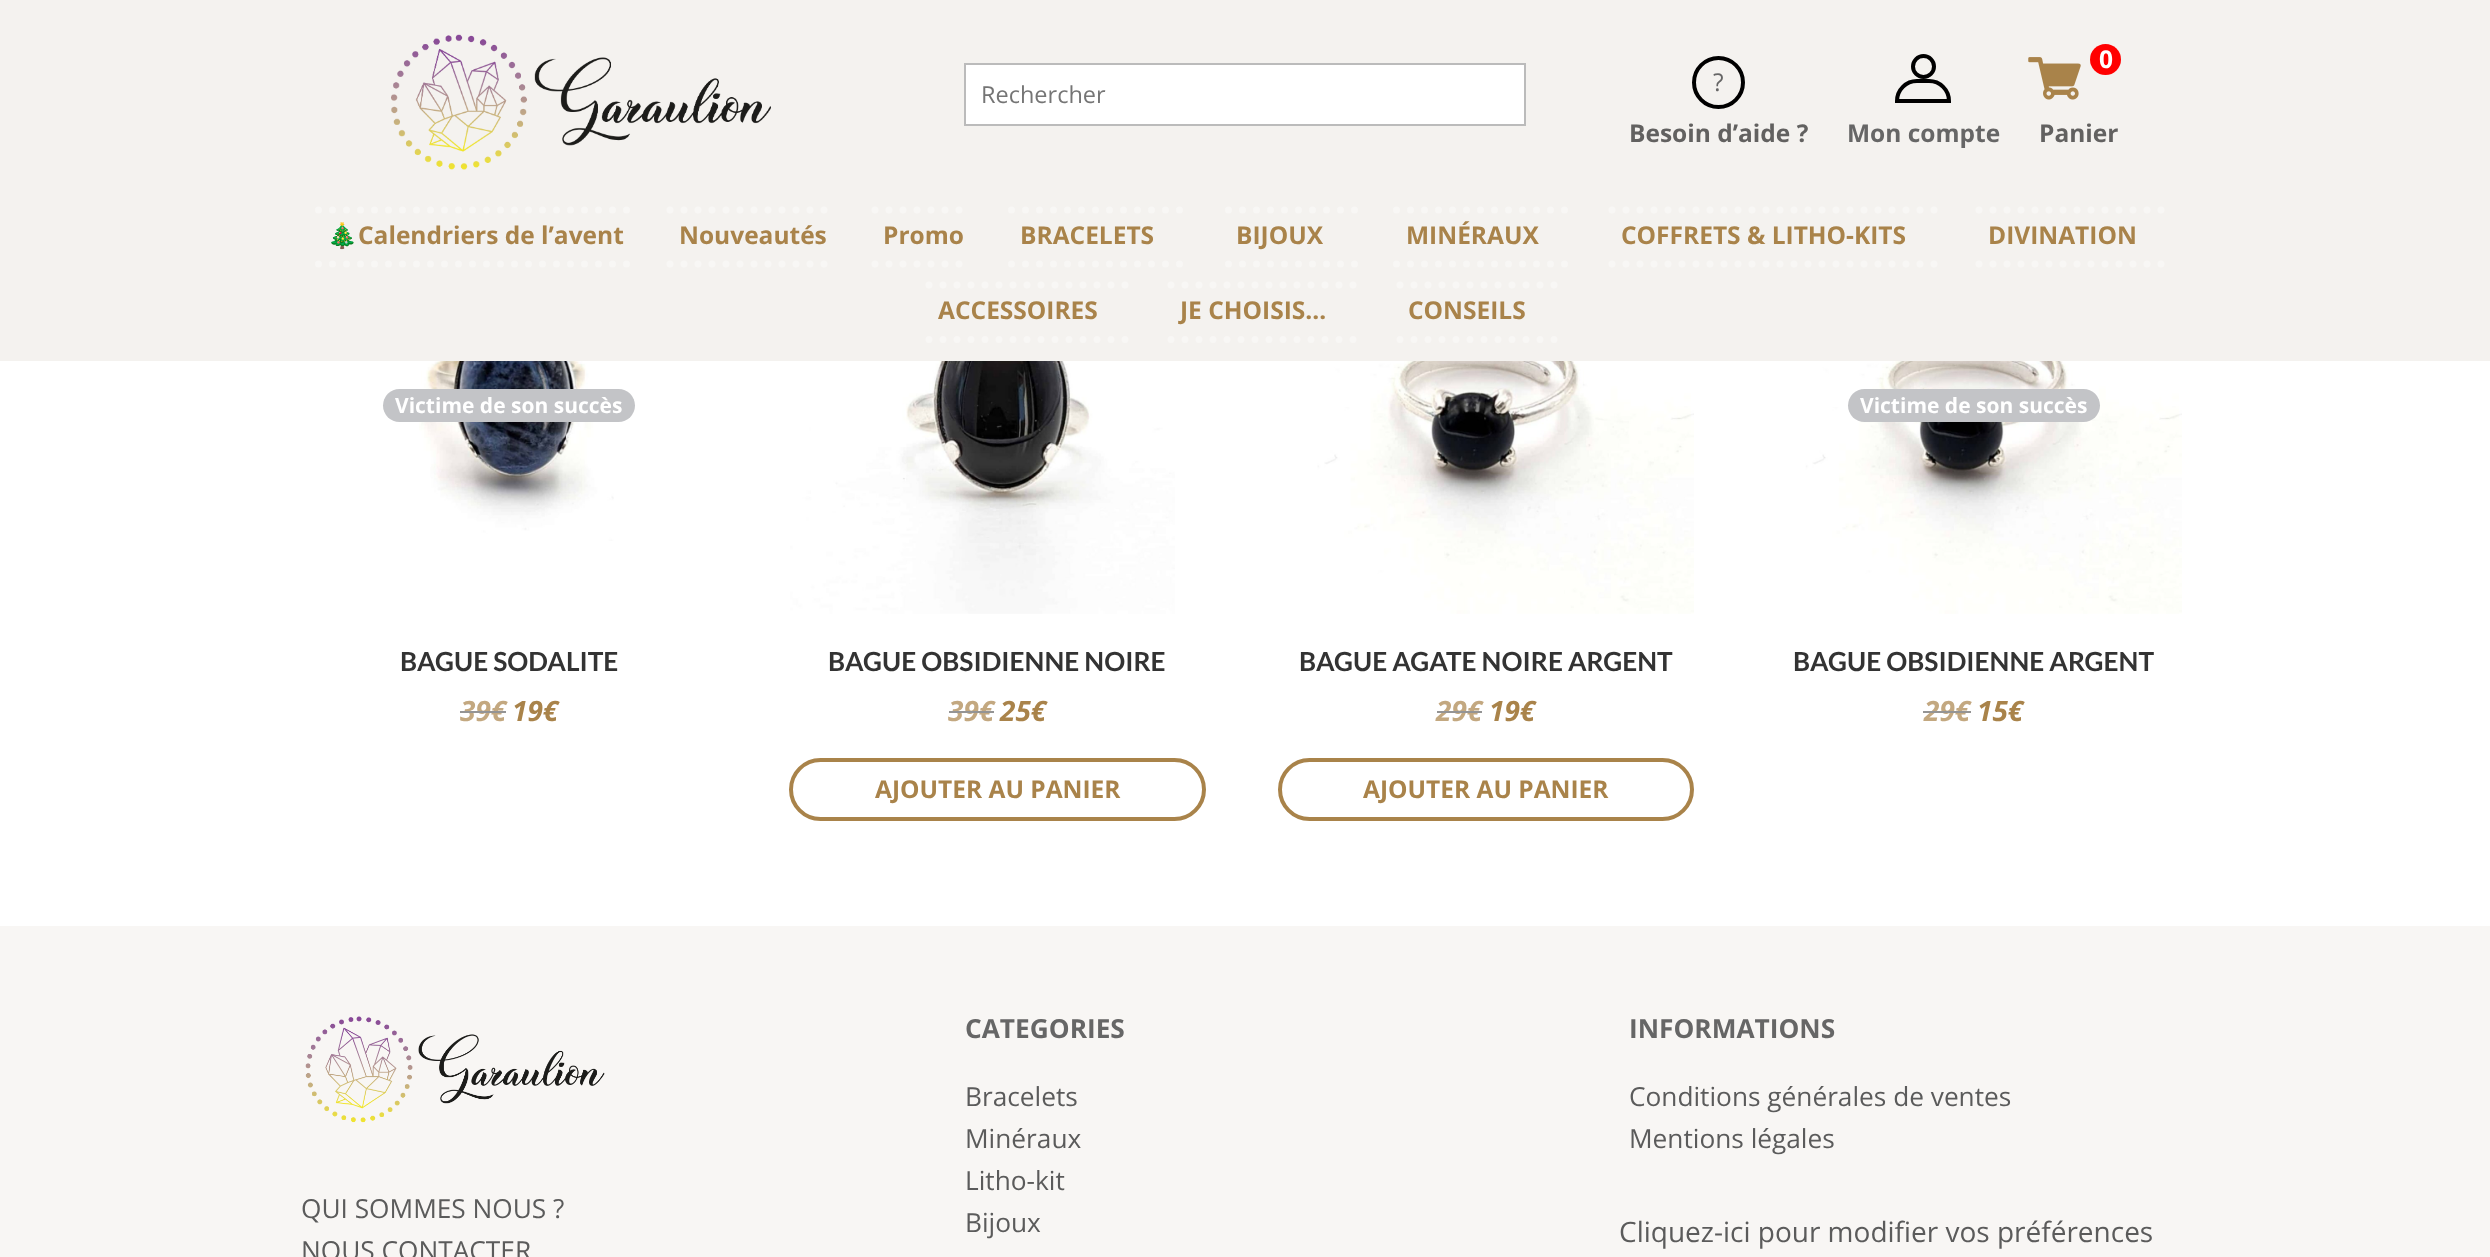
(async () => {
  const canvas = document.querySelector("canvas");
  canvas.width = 2490;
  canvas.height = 1257;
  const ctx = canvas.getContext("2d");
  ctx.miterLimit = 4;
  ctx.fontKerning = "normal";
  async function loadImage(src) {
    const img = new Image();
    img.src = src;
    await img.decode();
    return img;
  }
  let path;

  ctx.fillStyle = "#ffffff";
  ctx.fillRect(0, 0, 2490, 1257);
  ctx.fillStyle = "#f4f2ef";
  ctx.fillRect(0, 0, 2490, 361);
  ctx.drawImage(await loadImage("img/1.png"), 391, 34, 380, 136);
  ctx.fillStyle = "#ffffff";
  ctx.beginPath();
  ctx.rect(965, 64, 560, 61);
  ctx.fill();
  ctx.strokeStyle = "#bbbbbb";
  ctx.lineWidth = 2;
  ctx.stroke();
  ctx.drawImage(await loadImage("img/2.png"), 2028, 57, 53, 43);
  ctx.fillStyle = "#ff0000";
  ctx.beginPath();
  ctx.arc(2105.5, 59.5, 15.5, 0, Math.PI * 2);
  ctx.fill();
  ctx.beginPath();
  ctx.arc(1718.5, 82.5, 24.5, 0, Math.PI * 2);
  ctx.strokeStyle = "#000000";
  ctx.lineWidth = 4;
  ctx.stroke();
  ctx.beginPath();
  ctx.arc(1923.5, 66.5, 10.5, 0, Math.PI * 2);
  ctx.stroke();
  ctx.beginPath();
  ctx.roundRect(1897, 81, 52, 20, [22, 22, 0, 0]);
  ctx.stroke();
  path = new Path2D("M318.5 210H632");
  ctx.strokeStyle = "#f8f7f5";
  ctx.lineWidth = 7;
  ctx.lineCap = "round";
  ctx.setLineDash([0, 14]);
  ctx.stroke(path);
  path = new Path2D("M318.5 264H632");
  ctx.stroke(path);
  path = new Path2D("M670 210H836.5");
  ctx.stroke(path);
  path = new Path2D("M670 264H836.5");
  ctx.stroke(path);
  path = new Path2D("M875 210H973");
  ctx.stroke(path);
  path = new Path2D("M875 264H973");
  ctx.stroke(path);
  path = new Path2D("M1011.5 210H1190");
  ctx.stroke(path);
  path = new Path2D("M1011.5 264H1190");
  ctx.stroke(path);
  path = new Path2D("M1228.5 210H1358");
  ctx.stroke(path);
  path = new Path2D("M1228.5 264H1358");
  ctx.stroke(path);
  path = new Path2D("M1396.5 210H1573");
  ctx.stroke(path);
  path = new Path2D("M1396.5 264H1573");
  ctx.stroke(path);
  path = new Path2D("M1612 210H1941");
  ctx.stroke(path);
  path = new Path2D("M1612 264H1941");
  ctx.stroke(path);
  path = new Path2D("M1979 210H2172");
  ctx.stroke(path);
  path = new Path2D("M1979 264H2172");
  ctx.stroke(path);
  path = new Path2D("M929 285H1132");
  ctx.stroke(path);
  path = new Path2D("M929 339.5H1132");
  ctx.stroke(path);
  path = new Path2D("M1171 285H1361.5");
  ctx.stroke(path);
  path = new Path2D("M1171 339.5H1361.5");
  ctx.stroke(path);
  path = new Path2D("M1400 285H1561");
  ctx.stroke(path);
  path = new Path2D("M1400 339.5H1561");
  ctx.stroke(path);
  ctx.drawImage(await loadImage("img/3.png"), 419, 361, 195, 180);
  ctx.fillStyle = "#c3c4c7";
  ctx.beginPath();
  ctx.roundRect(383, 389, 252, 33, 16.5);
  ctx.fill();
  ctx.drawImage(await loadImage("img/4.png"), 790, 361, 385, 253);
  ctx.beginPath();
  ctx.roundRect(791, 760, 413, 59, 29.5);
  ctx.strokeStyle = "#a9834a";
  ctx.lineWidth = 4;
  ctx.setLineDash([]);
  ctx.stroke();
  ctx.drawImage(await loadImage("img/5.png"), 1293, 361, 401, 253);
  ctx.beginPath();
  ctx.roundRect(1280, 760, 412, 59, 29.5);
  ctx.stroke();
  ctx.drawImage(await loadImage("img/6.png"), 1792, 361, 390, 253);
  ctx.beginPath();
  ctx.roundRect(1848, 389, 252, 33, 16.5);
  ctx.fill();
  ctx.fillStyle = "#f8f6f4";
  ctx.fillRect(0, 926, 2490, 331);
  ctx.drawImage(await loadImage("img/7.png"), 305, 1016, 300, 107);
  ctx.font = "23.5px Open Sans";
  ctx.fillStyle = "#757575";
  ctx.fillText("Rechercher", 981, 103);
  ctx.font = "bold 24.5px Open Sans";
  ctx.fillStyle = "#ffffff";
  ctx.fillText("0", 2099, 68);
  ctx.font = "24.5px Open Sans";
  ctx.fillStyle = "#666666";
  ctx.fillText("?", 1713, 91);
  ctx.font = "bold 24.5px Open Sans";
  ctx.fillStyle = "#626160";
  ctx.fillText("Besoin d’aide ?", 1629, 142);
  ctx.fillStyle = "#666666";
  ctx.fillText("Mon compte", 1847, 142);
  ctx.fillStyle = "#626160";
  ctx.fillText("Panier", 2039, 142);
  ctx.font = "bold 24.5px Noto Color Emoji";
  ctx.fillStyle = "#a9834a";
  ctx.fillText("🎄", 327, 244);
  ctx.font = "bold 24.5px Open Sans";
  for (const [text, x, y] of [
    ["Calendriers de l’avent", 358, 244],
    ["Nouveautés", 679, 244],
    ["Promo", 883, 244],
    ["BRACELETS", 1020, 244],
    ["BIJOUX", 1236, 244],
    ["MINÉRAUX", 1406, 244],
    ["COFFRETS & LITHO-KITS", 1621, 244],
    ["DIVINATION", 1988, 244],
    ["ACCESSOIRES", 938, 319],
    ["JE CHOISIS…", 1180, 319],
    ["CONSEILS", 1408, 319],
  ]) {
    ctx.fillText(text, x, y);
  }
  ctx.font = "bold 21px Open Sans";
  ctx.fillStyle = "#ffffff";
  ctx.fillText("Victime de son succès", 395, 413);
  ctx.font = "bold 26.25px Lato";
  ctx.fillStyle = "#333333";
  ctx.fillText("BAGUE SODALITE", 400, 671);
  ctx.font = "italic bold 28px Open Sans";
  ctx.fillStyle = "#c3a880";
  ctx.fillText("39€", 460, 721);
  ctx.fillStyle = "#949494";
  ctx.fillRect(460, 711, 46, 2);
  ctx.fillStyle = "#a9834a";
  ctx.fillText("19€", 512, 721);
  ctx.font = "bold 26.25px Lato";
  ctx.fillStyle = "#333333";
  ctx.fillText("BAGUE OBSIDIENNE NOIRE", 828, 671);
  ctx.font = "italic bold 28px Open Sans";
  ctx.fillStyle = "#c3a880";
  ctx.fillText("39€", 948, 721);
  ctx.fillStyle = "#949494";
  ctx.fillRect(949, 711, 45, 2);
  ctx.fillStyle = "#a9834a";
  ctx.fillText("25€", 1000, 721);
  ctx.font = "bold 24.5px Open Sans";
  ctx.fillText("AJOUTER AU PANIER", 875, 798);
  ctx.font = "bold 26.25px Lato";
  ctx.fillStyle = "#333333";
  ctx.fillText("BAGUE AGATE NOIRE ARGENT", 1299, 671);
  ctx.font = "italic bold 28px Open Sans";
  ctx.fillStyle = "#c3a880";
  ctx.fillText("29€", 1436, 721);
  ctx.fillStyle = "#949494";
  ctx.fillRect(1437, 711, 45, 2);
  ctx.fillStyle = "#a9834a";
  ctx.fillText("19€", 1489, 721);
  ctx.font = "bold 24.5px Open Sans";
  ctx.fillText("AJOUTER AU PANIER", 1363, 798);
  ctx.font = "bold 21px Open Sans";
  ctx.fillStyle = "#ffffff";
  ctx.fillText("Victime de son succès", 1860, 413);
  ctx.font = "bold 26.25px Lato";
  ctx.fillStyle = "#333333";
  ctx.fillText("BAGUE OBSIDIENNE ARGENT", 1793, 671);
  ctx.font = "italic bold 28px Open Sans";
  ctx.fillStyle = "#c3a880";
  ctx.fillText("29€", 1924, 721);
  ctx.fillStyle = "#949494";
  ctx.fillRect(1923, 711, 48, 2);
  ctx.fillStyle = "#a9834a";
  ctx.fillText("15€", 1977, 721);
  ctx.font = "26.25px Open Sans";
  ctx.fillStyle = "#5b5b5b";
  ctx.fillText("QUI SOMMES NOUS ?", 301, 1218);
  ctx.fillText("NOUS CONTACTER", 301, 1260);
  ctx.font = "bold 26.25px Open Sans";
  ctx.fillStyle = "#666666";
  ctx.fillText("CATEGORIES", 965, 1038);
  ctx.font = "26.25px Open Sans";
  ctx.fillStyle = "#5b5b5b";
  for (const [text, x, y] of [
    ["Bracelets", 965, 1106],
    ["Minéraux", 965, 1148],
    ["Litho-kit", 965, 1190],
    ["Bijoux", 965, 1232],
  ]) {
    ctx.fillText(text, x, y);
  }
  ctx.font = "bold 26.25px Open Sans";
  ctx.fillStyle = "#666666";
  ctx.fillText("INFORMATIONS", 1629, 1038);
  ctx.font = "26.25px Open Sans";
  ctx.fillStyle = "#5b5b5b";
  ctx.fillText("Conditions générales de ventes", 1629, 1106);
  ctx.fillText("Mentions légales", 1629, 1148);
  ctx.font = "28px Open Sans";
  ctx.fillText("Cliquez-ici pour modifier vos préférences", 1619, 1242);
})();
